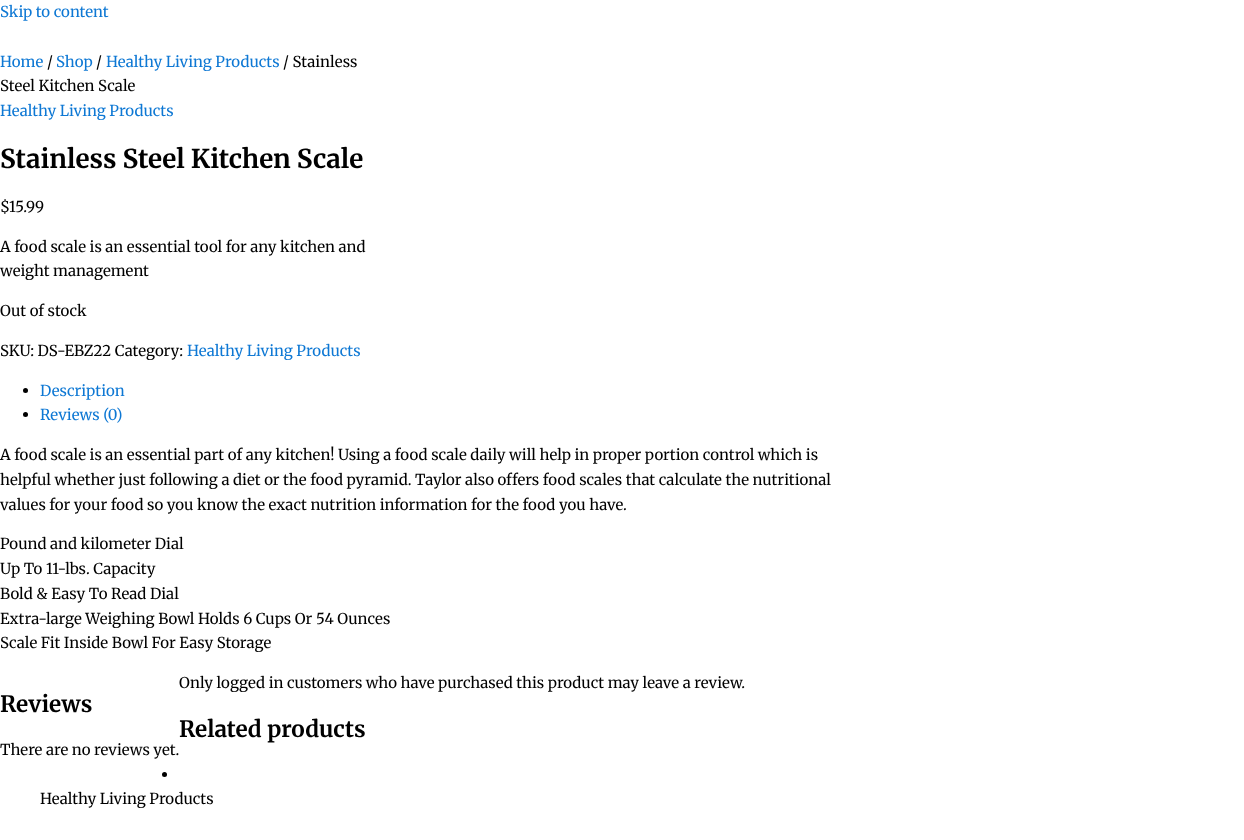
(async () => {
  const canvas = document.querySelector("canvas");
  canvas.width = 1244;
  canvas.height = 840;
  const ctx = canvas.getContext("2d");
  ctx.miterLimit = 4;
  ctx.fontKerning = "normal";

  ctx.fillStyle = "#ffffff";
  ctx.fillRect(0, 0, 1244, 840);
  ctx.fillStyle = "#000000";
  ctx.beginPath();
  ctx.arc(25.5, 390.5, 2.5, 0, Math.PI * 2);
  ctx.fill();
  ctx.beginPath();
  ctx.arc(25.5, 414.5, 2.5, 0, Math.PI * 2);
  ctx.fill();
  ctx.beginPath();
  ctx.arc(164.5, 774.5, 2.5, 0, Math.PI * 2);
  ctx.fill();
  ctx.font = "15px Merriweather";
  ctx.fillStyle = "#0e78d4";
  ctx.fillText("Skip to content", 0, 17);
  ctx.fillText("Home", 0, 67);
  ctx.fillStyle = "#000000";
  ctx.fillText("/", 47, 67);
  ctx.fillStyle = "#0e78d4";
  ctx.fillText("Shop", 56, 67);
  ctx.fillStyle = "#000000";
  ctx.fillText("/", 96, 67);
  ctx.fillStyle = "#0e78d4";
  ctx.fillText("Healthy Living Products", 106, 67);
  ctx.fillStyle = "#000000";
  ctx.fillText("/ Stainless", 283, 67);
  ctx.fillText("Steel Kitchen Scale", 0, 91);
  ctx.fillStyle = "#0e78d4";
  ctx.fillText("Healthy Living Products", 0, 116);
  ctx.font = "bold 26px Merriweather";
  ctx.fillStyle = "#000000";
  ctx.fillText("Stainless Steel Kitchen Scale", 0, 168);
  ctx.font = "15px Merriweather";
  for (const [text, x, y] of [
    ["$", 0, 212],
    ["15.99", 9, 212],
    ["A food scale is an essential tool for any kitchen and", 0, 252],
    ["weight management", 0, 276],
    ["Out of stock", 0, 316],
    ["SKU: DS-EBZ22 Category:", 0, 356],
  ]) {
    ctx.fillText(text, x, y);
  }
  ctx.fillStyle = "#0e78d4";
  for (const [text, x, y] of [
    ["Healthy Living Products", 187, 356],
    ["Description", 40, 396],
    ["Reviews (0)", 40, 420],
  ]) {
    ctx.fillText(text, x, y);
  }
  ctx.fillStyle = "#000000";
  for (const [text, x, y] of [
    ["A food scale is an essential part of any kitchen! Using a food scale daily will help in proper portion control which is", 0, 460],
    ["helpful whether just following a diet or the food pyramid. Taylor also offers food scales that calculate the nutritional", 0, 485],
    ["values for your food so you know the exact nutrition information for the food you have.", 0, 510],
    ["Pound and kilometer Dial", 0, 549],
    ["Up To 11-lbs. Capacity", 0, 574],
    ["Bold & Easy To Read Dial", 0, 599],
    ["Extra-large Weighing Bowl Holds 6 Cups Or 54 Ounces", 0, 624],
    ["Scale Fit Inside Bowl For Easy Storage", 0, 648],
    ["Only logged in customers who have purchased this product may leave a review.", 179, 688],
  ]) {
    ctx.fillText(text, x, y);
  }
  ctx.font = "bold 22.5px Merriweather";
  ctx.fillText("Reviews", 0, 712);
  ctx.font = "15px Merriweather";
  ctx.fillText("There are no reviews yet.", 0, 755);
  ctx.font = "bold 22.5px Merriweather";
  ctx.fillText("Related products", 179, 737);
  ctx.font = "15px Merriweather";
  ctx.fillText("Healthy Living Products", 40, 804);
})();
